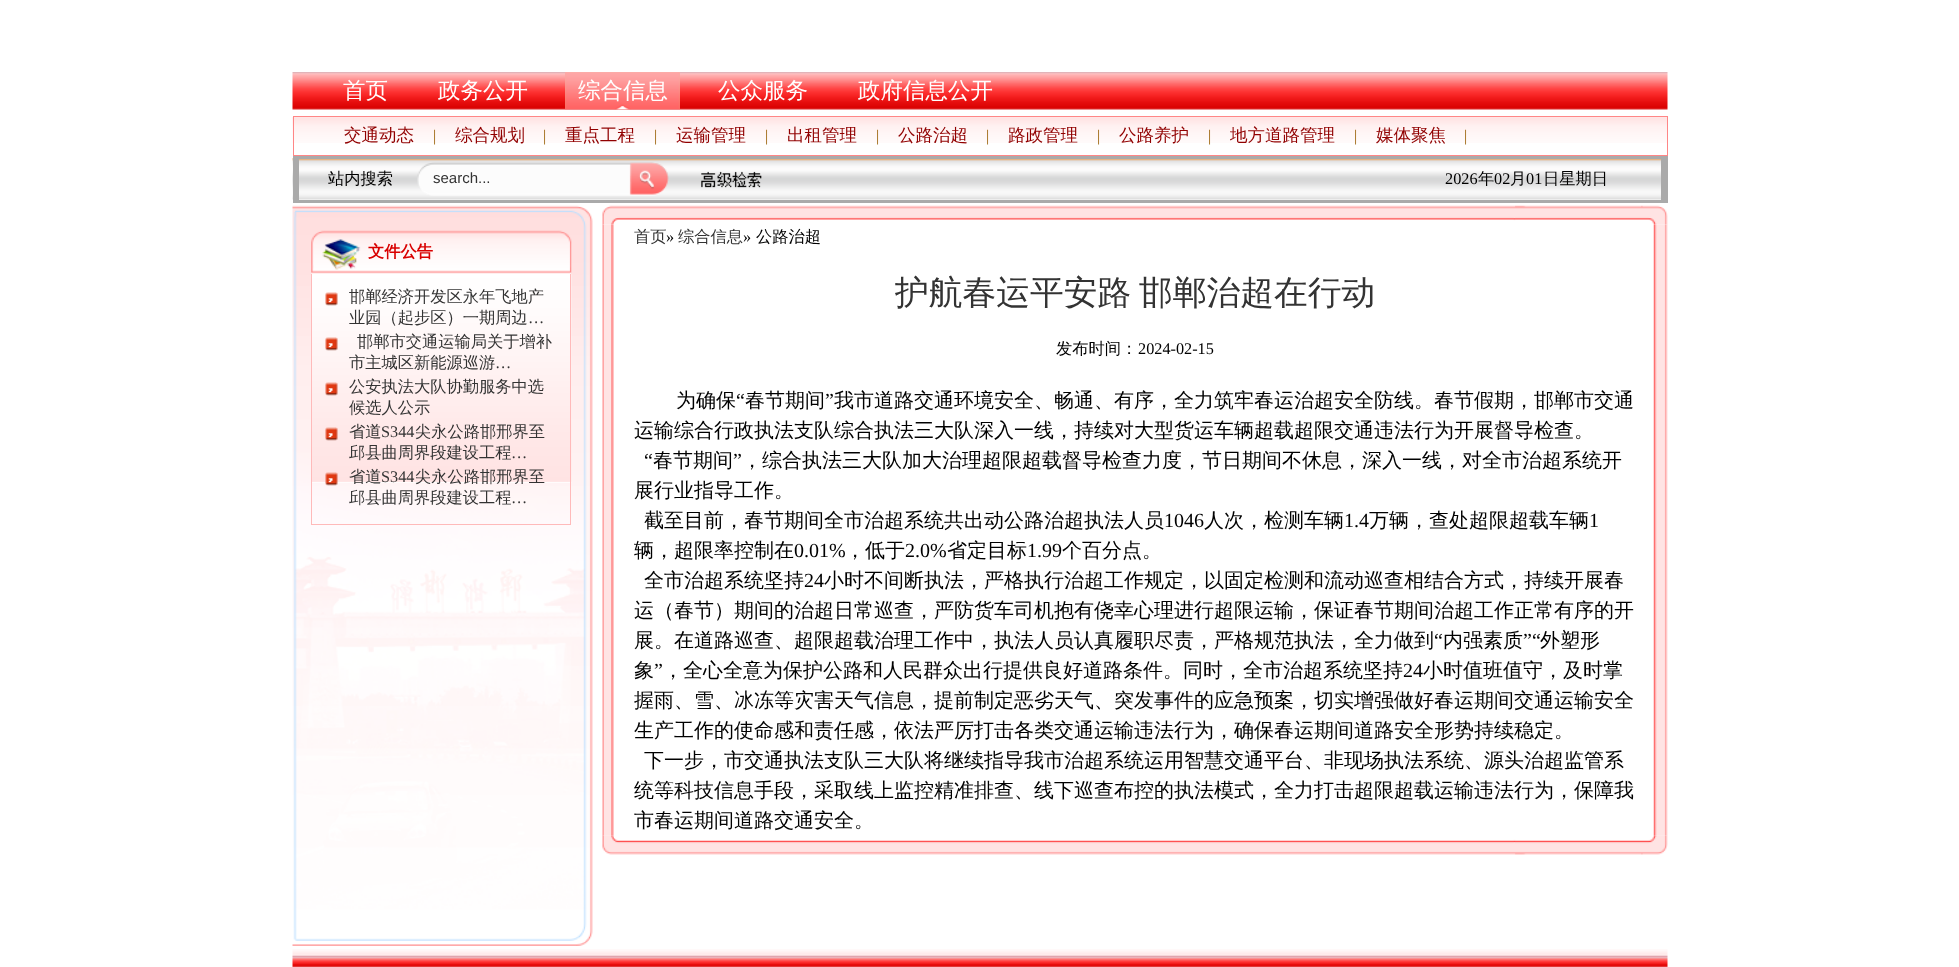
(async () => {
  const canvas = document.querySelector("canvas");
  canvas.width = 1959;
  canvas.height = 967;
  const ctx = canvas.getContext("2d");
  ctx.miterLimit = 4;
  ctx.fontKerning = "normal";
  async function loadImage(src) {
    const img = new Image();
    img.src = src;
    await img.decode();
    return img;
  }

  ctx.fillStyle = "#ffffff";
  ctx.fillRect(0, 0, 1959, 967);
  ctx.drawImage(await loadImage("img/1.png"), 292, 72, 1376, 38);
  ctx.drawImage(await loadImage("img/2.png"), 565, 72, 115, 38);
  ctx.drawImage(await loadImage("img/3.png"), 292, 117, 1375, 26);
  ctx.strokeStyle = "#ff8686";
  ctx.strokeRect(293.5, 116.5, 1374, 39);
  ctx.drawImage(await loadImage("img/4.png"), 292, 158, 1369, 42);
  for (const [x, y, w, h, color] of [
    [293, 156, 1375, 3, "#aaaaaa"],
    [1661, 156, 7, 47, "#aaaaaa"],
    [293, 200, 1375, 3, "#aaaaaa"],
    [293, 156, 6, 47, "#aaaaaa"],
  ]) {
    ctx.fillStyle = color;
    ctx.fillRect(x, y, w, h);
  }
  ctx.drawImage(await loadImage("img/5.png"), 417, 162, 345, 34);
  ctx.drawImage(await loadImage("img/6.png"), 292, 205, 301, 741);
  ctx.drawImage(await loadImage("img/7.png"), 311, 230, 261, 44);
  ctx.drawImage(await loadImage("img/8.png"), 311, 273, 261, 210);
  for (const [x, y, w, h, color] of [
    [570, 274, 1, 251, "#ffbaba"],
    [311, 524, 260, 1, "#ffbaba"],
    [311, 274, 1, 251, "#ffbaba"],
  ]) {
    ctx.fillStyle = color;
    ctx.fillRect(x, y, w, h);
  }
  ctx.drawImage(await loadImage("img/9.png"), 325, 292, 13, 14);
  ctx.drawImage(await loadImage("img/10.png"), 325, 337, 13, 14);
  ctx.drawImage(await loadImage("img/11.png"), 325, 382, 13, 14);
  ctx.drawImage(await loadImage("img/12.png"), 325, 427, 13, 14);
  ctx.drawImage(await loadImage("img/13.png"), 325, 472, 13, 14);
  ctx.drawImage(await loadImage("img/14.png"), 602, 205, 1066, 20);
  ctx.drawImage(await loadImage("img/15.png"), 602, 224, 1066, 612);
  ctx.drawImage(await loadImage("img/16.png"), 602, 835, 1066, 20);
  ctx.drawImage(await loadImage("img/17.png"), 292, 949, 1376, 18);
  ctx.font = "500 22.5px WenQuanYi Zen Hei";
  ctx.fillStyle = "#ffffff";
  for (const [text, x, y] of [
    ["首页", 343, 98],
    ["政务公开", 438, 98],
    ["综合信息", 578, 98],
    ["公众服务", 718, 98],
    ["政府信息公开", 858, 98],
  ]) {
    ctx.fillText(text, x, y);
  }
  ctx.font = "500 17.5px WenQuanYi Zen Hei";
  ctx.fillStyle = "#910000";
  ctx.fillText("交通动态", 344, 141);
  ctx.font = "16.25px Liberation Serif";
  ctx.fillStyle = "#985d00";
  ctx.fillText("|", 433, 141);
  ctx.font = "500 17.5px WenQuanYi Zen Hei";
  ctx.fillStyle = "#910000";
  ctx.fillText("综合规划", 455, 141);
  ctx.font = "16.25px Liberation Serif";
  ctx.fillStyle = "#985d00";
  ctx.fillText("|", 543, 141);
  ctx.font = "500 17.5px WenQuanYi Zen Hei";
  ctx.fillStyle = "#910000";
  ctx.fillText("重点工程", 565, 141);
  ctx.font = "16.25px Liberation Serif";
  ctx.fillStyle = "#985d00";
  ctx.fillText("|", 654, 141);
  ctx.font = "500 17.5px WenQuanYi Zen Hei";
  ctx.fillStyle = "#910000";
  ctx.fillText("运输管理", 676, 141);
  ctx.font = "16.25px Liberation Serif";
  ctx.fillStyle = "#985d00";
  ctx.fillText("|", 765, 141);
  ctx.font = "500 17.5px WenQuanYi Zen Hei";
  ctx.fillStyle = "#910000";
  ctx.fillText("出租管理", 787, 141);
  ctx.font = "16.25px Liberation Serif";
  ctx.fillStyle = "#985d00";
  ctx.fillText("|", 876, 141);
  ctx.font = "500 17.5px WenQuanYi Zen Hei";
  ctx.fillStyle = "#910000";
  ctx.fillText("公路治超", 898, 141);
  ctx.font = "16.25px Liberation Serif";
  ctx.fillStyle = "#985d00";
  ctx.fillText("|", 986, 141);
  ctx.font = "500 17.5px WenQuanYi Zen Hei";
  ctx.fillStyle = "#910000";
  ctx.fillText("路政管理", 1008, 141);
  ctx.font = "16.25px Liberation Serif";
  ctx.fillStyle = "#985d00";
  ctx.fillText("|", 1097, 141);
  ctx.font = "500 17.5px WenQuanYi Zen Hei";
  ctx.fillStyle = "#910000";
  ctx.fillText("公路养护", 1119, 141);
  ctx.font = "16.25px Liberation Serif";
  ctx.fillStyle = "#985d00";
  ctx.fillText("|", 1208, 141);
  ctx.font = "500 17.5px WenQuanYi Zen Hei";
  ctx.fillStyle = "#910000";
  ctx.fillText("地方道路管理", 1230, 141);
  ctx.font = "16.25px Liberation Serif";
  ctx.fillStyle = "#985d00";
  ctx.fillText("|", 1354, 141);
  ctx.font = "500 17.5px WenQuanYi Zen Hei";
  ctx.fillStyle = "#910000";
  ctx.fillText("媒体聚焦", 1376, 141);
  ctx.font = "16.25px Liberation Serif";
  ctx.fillStyle = "#985d00";
  ctx.fillText("|", 1464, 141);
  ctx.font = "500 16.25px WenQuanYi Zen Hei";
  ctx.fillStyle = "#000000";
  ctx.fillText("站内搜索", 328, 184);
  ctx.font = "15px Liberation Sans";
  ctx.fillStyle = "#333333";
  ctx.fillText("search...", 433, 183);
  ctx.font = "16.25px Liberation Serif";
  ctx.fillStyle = "#000000";
  ctx.fillText("2026", 1445, 184);
  ctx.font = "500 16.25px WenQuanYi Zen Hei";
  ctx.fillText("年", 1478, 184);
  ctx.font = "16.25px Liberation Serif";
  ctx.fillText("02", 1494, 184);
  ctx.font = "500 16.25px WenQuanYi Zen Hei";
  ctx.fillText("月", 1510, 184);
  ctx.font = "16.25px Liberation Serif";
  ctx.fillText("01", 1526, 184);
  ctx.font = "500 16.25px WenQuanYi Zen Hei";
  ctx.fillText("日星期日", 1543, 184);
  ctx.font = "bold 16.25px WenQuanYi Zen Hei";
  ctx.fillStyle = "#d90000";
  ctx.fillText("文件公告", 368, 257);
  ctx.font = "500 16.25px WenQuanYi Zen Hei";
  ctx.fillStyle = "#333333";
  ctx.fillText("邯郸经济开发区永年飞地产", 349, 302);
  ctx.fillText("业园（起步区）一期周边", 349, 323);
  ctx.font = "16.25px Liberation Serif";
  ctx.fillText("…", 528, 323);
  ctx.font = "500 16.25px WenQuanYi Zen Hei";
  ctx.fillText("邯郸市交通运输局关于增补", 357, 347);
  ctx.fillText("市主城区新能源巡游", 349, 368);
  ctx.font = "16.25px Liberation Serif";
  ctx.fillText("…", 495, 368);
  ctx.font = "500 16.25px WenQuanYi Zen Hei";
  for (const [text, x, y] of [
    ["公安执法大队协勤服务中选", 349, 392],
    ["候选人公示", 349, 413],
    ["省道", 349, 437],
  ]) {
    ctx.fillText(text, x, y);
  }
  ctx.font = "16.25px Liberation Serif";
  ctx.fillText("S344", 381, 437);
  ctx.font = "500 16.25px WenQuanYi Zen Hei";
  ctx.fillText("尖永公路邯邢界至", 415, 437);
  ctx.fillText("邱县曲周界段建设工程", 349, 458);
  ctx.font = "16.25px Liberation Serif";
  ctx.fillText("…", 511, 458);
  ctx.font = "500 16.25px WenQuanYi Zen Hei";
  ctx.fillText("省道", 349, 482);
  ctx.font = "16.25px Liberation Serif";
  ctx.fillText("S344", 381, 482);
  ctx.font = "500 16.25px WenQuanYi Zen Hei";
  ctx.fillText("尖永公路邯邢界至", 415, 482);
  ctx.fillText("邱县曲周界段建设工程", 349, 503);
  ctx.font = "16.25px Liberation Serif";
  ctx.fillText("…", 511, 503);
  ctx.font = "500 16.25px WenQuanYi Zen Hei";
  ctx.fillText("首页", 634, 242);
  ctx.font = "16.25px Liberation Serif";
  ctx.fillStyle = "#000000";
  ctx.fillText("»", 666, 242);
  ctx.font = "500 16.25px WenQuanYi Zen Hei";
  ctx.fillStyle = "#333333";
  ctx.fillText("综合信息", 678, 242);
  ctx.font = "16.25px Liberation Serif";
  ctx.fillStyle = "#000000";
  ctx.fillText("»", 743, 242);
  ctx.font = "500 16.25px WenQuanYi Zen Hei";
  ctx.fillText("公路治超", 756, 242);
  ctx.font = "500 33.75px WenQuanYi Zen Hei";
  ctx.fillStyle = "#333333";
  ctx.fillText("护航春运平安路", 895, 304);
  ctx.fillText("邯郸治超在行动", 1139, 304);
  ctx.font = "500 16.25px WenQuanYi Zen Hei";
  ctx.fillStyle = "#000000";
  ctx.fillText("发布时间：", 1056, 354);
  ctx.font = "16.25px Liberation Serif";
  ctx.fillText("2024-02-15", 1138, 354);
  ctx.font = "500 20px WenQuanYi Zen Hei";
  ctx.fillText("为确保", 676, 407);
  ctx.font = "20px Liberation Serif";
  ctx.fillText("“", 736, 407);
  ctx.font = "500 20px WenQuanYi Zen Hei";
  ctx.fillText("春节期间", 745, 407);
  ctx.font = "20px Liberation Serif";
  ctx.fillText("”", 825, 407);
  ctx.font = "500 20px WenQuanYi Zen Hei";
  ctx.fillText("我市道路交通环境安全、畅通、有序，全力筑牢春运治超安全防线。春节假期，邯郸市交通", 834, 407);
  ctx.fillText("运输综合行政执法支队综合执法三大队深入一线，持续对大型货运车辆超载超限交通违法行为开展督导检查。", 634, 437);
  ctx.font = "20px Liberation Serif";
  ctx.fillText("“", 644, 467);
  ctx.font = "500 20px WenQuanYi Zen Hei";
  ctx.fillText("春节期间", 653, 467);
  ctx.font = "20px Liberation Serif";
  ctx.fillText("”", 733, 467);
  ctx.font = "500 20px WenQuanYi Zen Hei";
  for (const [text, x, y] of [
    ["，综合执法三大队加大治理超限超载督导检查力度，节日期间不休息，深入一线，对全市治超系统开", 742, 467],
    ["展行业指导工作。", 634, 497],
    ["截至目前，春节期间全市治超系统共出动公路治超执法人员", 644, 527],
  ]) {
    ctx.fillText(text, x, y);
  }
  ctx.font = "20px Liberation Serif";
  ctx.fillText("1046", 1164, 527);
  ctx.font = "500 20px WenQuanYi Zen Hei";
  ctx.fillText("人次，检测车辆", 1204, 527);
  ctx.font = "20px Liberation Serif";
  ctx.fillText("1.4", 1344, 527);
  ctx.font = "500 20px WenQuanYi Zen Hei";
  ctx.fillText("万辆，查处超限超载车辆", 1369, 527);
  ctx.font = "20px Liberation Serif";
  ctx.fillText("1", 1589, 527);
  ctx.font = "500 20px WenQuanYi Zen Hei";
  ctx.fillText("辆，超限率控制在", 634, 557);
  ctx.font = "20px Liberation Serif";
  ctx.fillText("0.01%", 794, 557);
  ctx.font = "500 20px WenQuanYi Zen Hei";
  ctx.fillText("，低于", 845, 557);
  ctx.font = "20px Liberation Serif";
  ctx.fillText("2.0%", 905, 557);
  ctx.font = "500 20px WenQuanYi Zen Hei";
  ctx.fillText("省定目标", 947, 557);
  ctx.font = "20px Liberation Serif";
  ctx.fillText("1.99", 1027, 557);
  ctx.font = "500 20px WenQuanYi Zen Hei";
  ctx.fillText("个百分点。", 1062, 557);
  ctx.fillText("全市治超系统坚持", 644, 587);
  ctx.font = "20px Liberation Serif";
  ctx.fillText("24", 804, 587);
  ctx.font = "500 20px WenQuanYi Zen Hei";
  for (const [text, x, y] of [
    ["小时不间断执法，严格执行治超工作规定，以固定检测和流动巡查相结合方式，持续开展春", 824, 587],
    ["运（春节）期间的治超日常巡查，严防货车司机抱有侥幸心理进行超限运输，保证春节期间治超工作正常有序的开", 634, 617],
    ["展。在道路巡查、超限超载治理工作中，执法人员认真履职尽责，严格规范执法，全力做到", 634, 647],
  ]) {
    ctx.fillText(text, x, y);
  }
  ctx.font = "20px Liberation Serif";
  ctx.fillText("“", 1434, 647);
  ctx.font = "500 20px WenQuanYi Zen Hei";
  ctx.fillText("内强素质", 1443, 647);
  ctx.font = "20px Liberation Serif";
  ctx.fillText("”“", 1523, 647);
  ctx.font = "500 20px WenQuanYi Zen Hei";
  ctx.fillText("外塑形", 1540, 647);
  ctx.fillText("象", 634, 677);
  ctx.font = "20px Liberation Serif";
  ctx.fillText("”", 654, 677);
  ctx.font = "500 20px WenQuanYi Zen Hei";
  ctx.fillText("，全心全意为保护公路和人民群众出行提供良好道路条件。同时，全市治超系统坚持", 663, 677);
  ctx.font = "20px Liberation Serif";
  ctx.fillText("24", 1403, 677);
  ctx.font = "500 20px WenQuanYi Zen Hei";
  for (const [text, x, y] of [
    ["小时值班值守，及时掌", 1423, 677],
    ["握雨、雪、冰冻等灾害天气信息，提前制定恶劣天气、突发事件的应急预案，切实增强做好春运期间交通运输安全", 634, 707],
    ["生产工作的使命感和责任感，依法严厉打击各类交通运输违法行为，确保春运期间道路安全形势持续稳定。", 634, 737],
    ["下一步，市交通执法支队三大队将继续指导我市治超系统运用智慧交通平台、非现场执法系统、源头治超监管系", 644, 767],
    ["统等科技信息手段，采取线上监控精准排查、线下巡查布控的执法模式，全力打击超限超载运输违法行为，保障我", 634, 797],
    ["市春运期间道路交通安全。", 634, 827],
  ]) {
    ctx.fillText(text, x, y);
  }
})();
